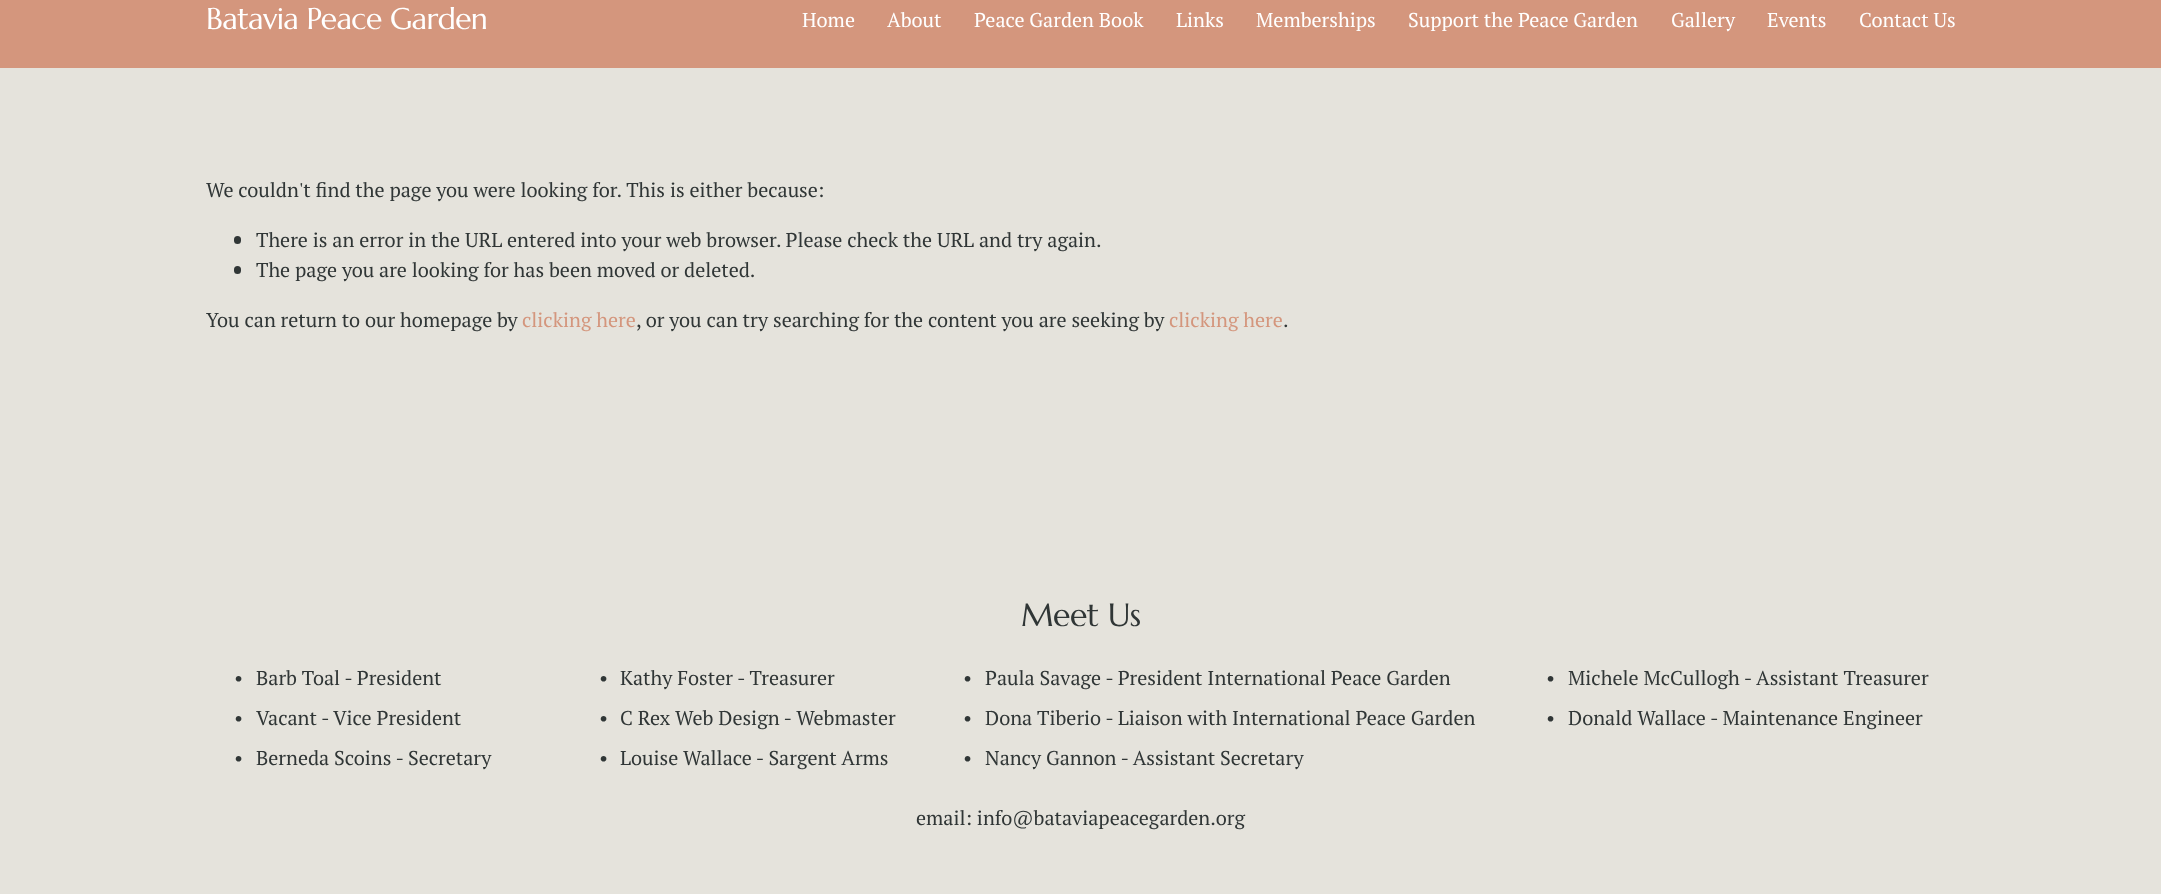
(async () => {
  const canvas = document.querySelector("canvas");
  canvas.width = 2161;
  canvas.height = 894;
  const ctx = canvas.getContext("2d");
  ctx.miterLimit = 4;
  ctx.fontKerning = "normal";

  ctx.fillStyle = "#e5e3dc";
  ctx.fillRect(0, 0, 2161, 894);
  ctx.fillStyle = "#d4967d";
  ctx.fillRect(0, 0, 2161, 68);
  ctx.fillStyle = "#303636";
  ctx.beginPath();
  ctx.roundRect(234, 236, 7, 8, 3.5);
  ctx.fill();
  ctx.beginPath();
  ctx.roundRect(234, 266, 7, 8, 3.5);
  ctx.fill();
  ctx.letterSpacing = "-0.6px";
  ctx.font = "30px Marcellus";
  ctx.fillStyle = "#ffffff";
  ctx.fillText("Batavia Peace Garden", 206, 29);
  ctx.letterSpacing = "0px";
  ctx.font = "20px PT Serif";
  for (const [text, x, y] of [
    ["Home", 802, 27],
    ["About", 887, 27],
    ["Peace Garden Book", 974, 27],
    ["Links", 1176, 27],
    ["Memberships", 1256, 27],
    ["Support the Peace Garden", 1408, 27],
    ["Gallery", 1671, 27],
    ["Events", 1767, 27],
    ["Contact Us", 1859, 27],
  ]) {
    ctx.fillText(text, x, y);
  }
  ctx.fillStyle = "#303636";
  for (const [text, x, y] of [
    ["We couldn't find the page you were looking for. This is either because:", 206, 197],
    ["There is an error in the URL entered into your web browser. Please check the URL and try again.", 256, 247],
    ["The page you are looking for has been moved or deleted.", 256, 277],
    ["You can return to our homepage by", 206, 327],
  ]) {
    ctx.fillText(text, x, y);
  }
  ctx.fillStyle = "#d4967d";
  ctx.fillText("clicking here", 522, 327);
  ctx.fillStyle = "#303636";
  ctx.fillText(", or you can try searching for the content you are seeking by", 636, 327);
  ctx.fillStyle = "#d4967d";
  ctx.fillText("clicking here", 1169, 327);
  ctx.fillStyle = "#303636";
  ctx.fillText(".", 1283, 327);
  ctx.letterSpacing = "-0.5px";
  ctx.font = "32px Marcellus";
  ctx.fillText("Meet Us", 1021, 626);
  ctx.letterSpacing = "0px";
  ctx.font = "20px PT Serif";
  for (const [text, x, y] of [
    ["•", 234, 685],
    ["Barb Toal - President", 256, 685],
    ["•", 234, 725],
    ["Vacant - Vice President", 256, 725],
    ["•", 234, 765],
    ["Berneda Scoins - Secretary", 256, 765],
    ["•", 599, 685],
    ["Kathy Foster - Treasurer", 620, 685],
    ["•", 599, 725],
    ["C Rex Web Design - Webmaster", 620, 725],
    ["•", 599, 765],
    ["Louise Wallace - Sargent Arms", 620, 765],
    ["•", 963, 685],
    ["Paula Savage - President International Peace Garden", 985, 685],
    ["•", 963, 725],
    ["Dona Tiberio - Liaison with International Peace Garden", 985, 725],
    ["•", 963, 765],
    ["Nancy Gannon - Assistant Secretary", 985, 765],
    ["•", 1546, 685],
    ["Michele McCullogh - Assistant Treasurer", 1568, 685],
    ["•", 1546, 725],
    ["Donald Wallace - Maintenance Engineer", 1568, 725],
    ["email: info@bataviapeacegarden.org", 916, 825],
  ]) {
    ctx.fillText(text, x, y);
  }
})();
